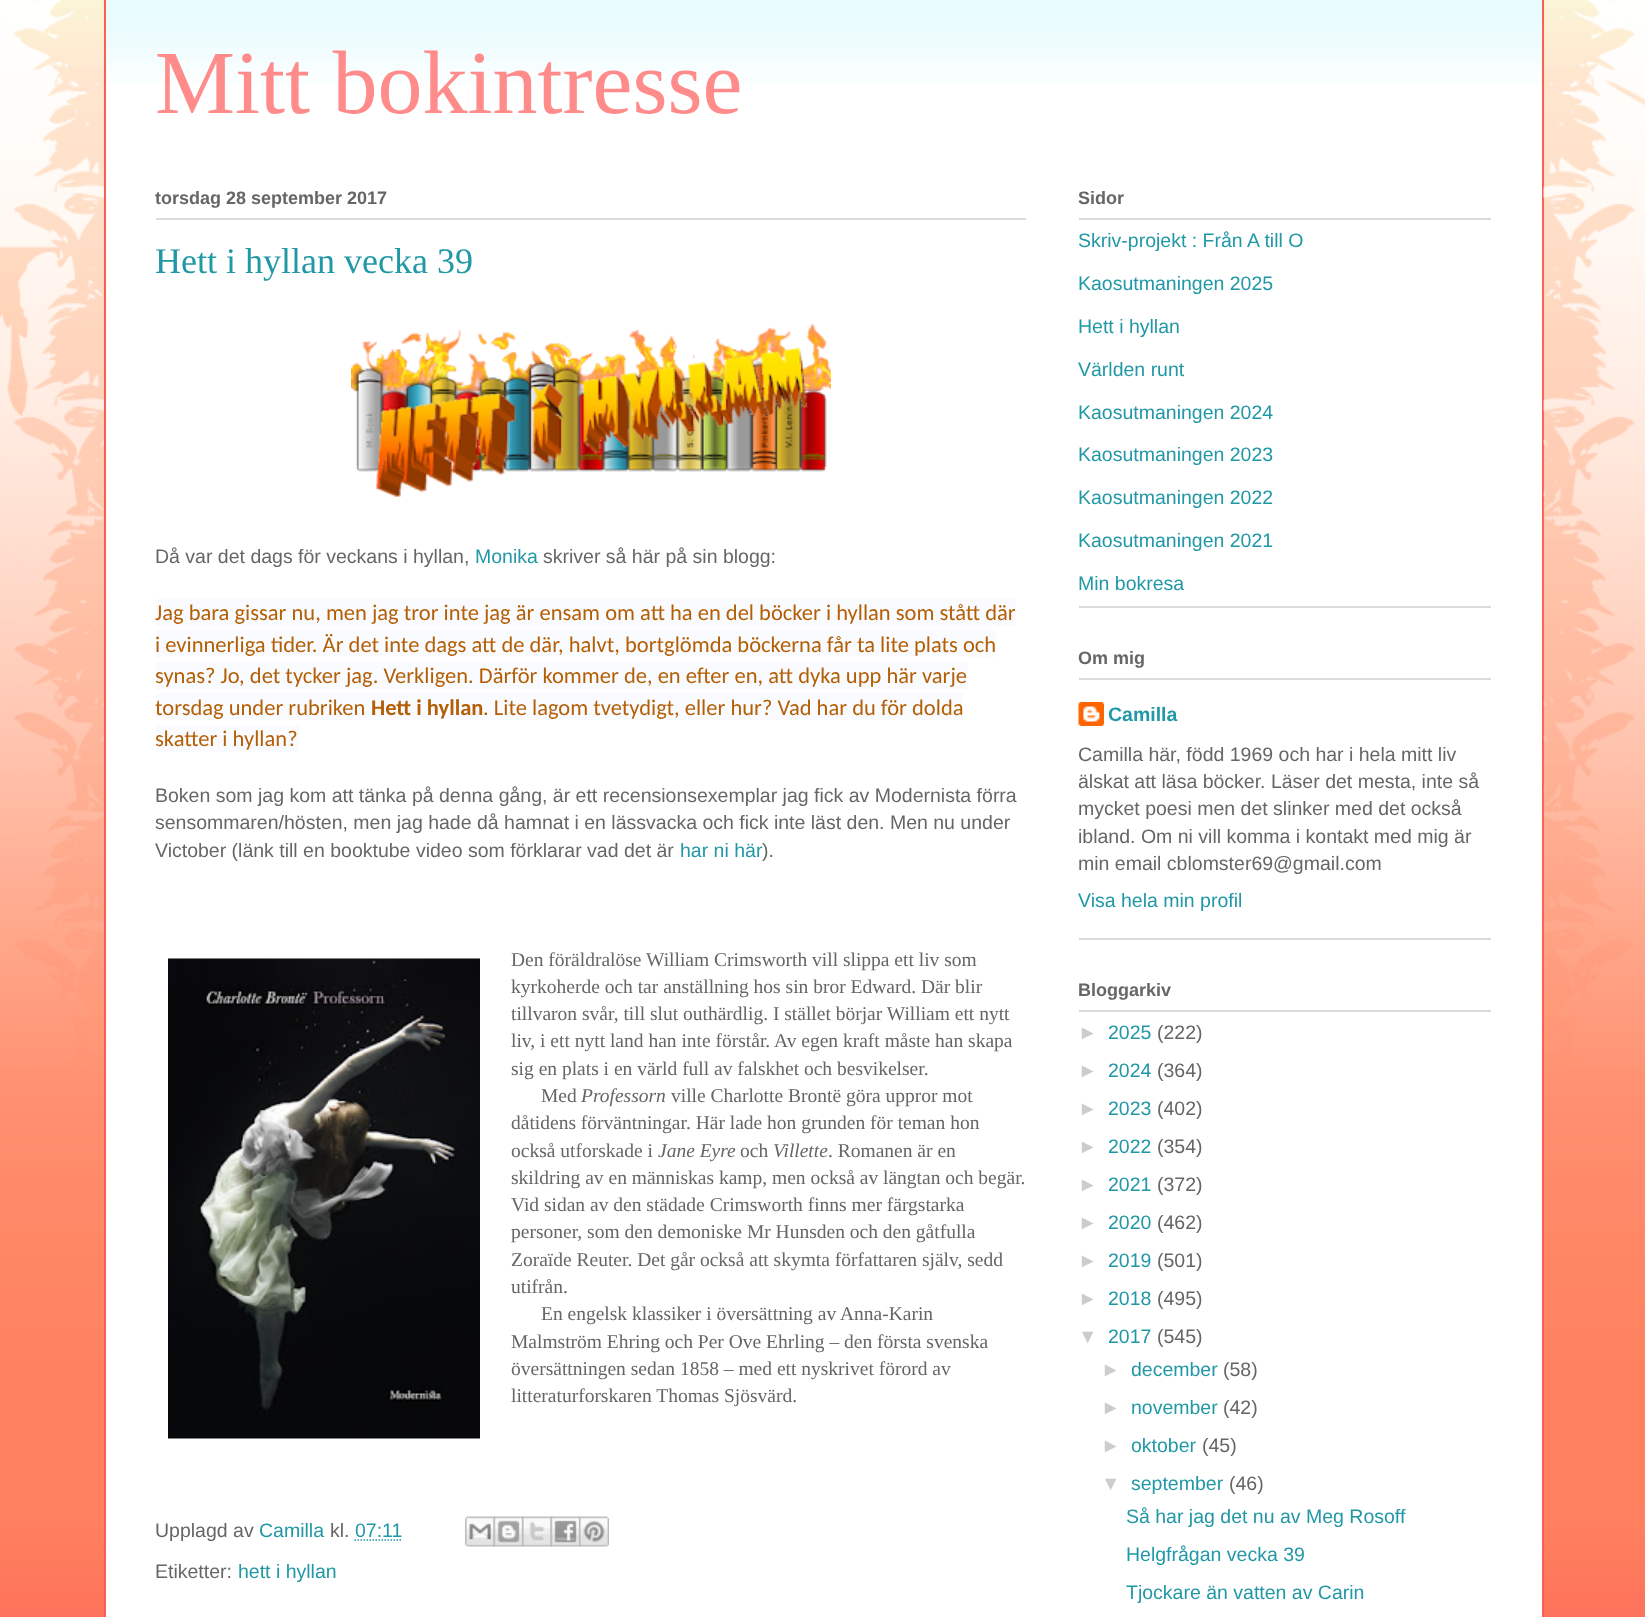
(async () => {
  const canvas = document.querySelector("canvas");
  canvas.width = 1645;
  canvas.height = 1617;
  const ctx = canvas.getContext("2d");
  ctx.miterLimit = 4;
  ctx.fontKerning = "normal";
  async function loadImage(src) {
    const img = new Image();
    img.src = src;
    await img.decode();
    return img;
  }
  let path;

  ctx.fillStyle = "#ffffff";
  ctx.fillRect(0, 0, 1645, 1617);
  ctx.drawImage(await loadImage("img/1.png"), 0, 0, 1645, 1617);
  ctx.drawImage(await loadImage("img/2.png"), 0, 0, 104, 1070);
  ctx.fillRect(106, 0, 1436, 1617);
  ctx.drawImage(await loadImage("img/3.png"), 103, 0, 1439, 84);
  ctx.fillStyle = "#fb5e53";
  ctx.fillRect(1542, 0, 2, 1617);
  ctx.fillRect(104, 0, 2, 1617);
  ctx.drawImage(await loadImage("img/4.png"), 1543, 0, 102, 1070);
  ctx.fillStyle = "#dbdbdb";
  ctx.fillRect(156, 218, 870, 2);
  ctx.drawImage(await loadImage("img/5.png"), 351, 324, 480, 173);
  for (const [x, y, w, h, color] of [
    [156, 599, 860, 27, "#fafbfe"],
    [156, 630, 840, 27, "#fafbfe"],
    [156, 662, 812, 27, "#fafbfe"],
    [156, 693, 807, 27, "#fafbfe"],
    [156, 725, 143, 27, "#fafbfe"],
  ]) {
    ctx.fillStyle = color;
    ctx.fillRect(x, y, w, h);
  }
  ctx.drawImage(await loadImage("img/6.png"), 168, 958, 312, 481);
  path = new Path2D("M354.5 1540H402");
  ctx.strokeStyle = "#2198a6";
  ctx.lineWidth = 1.5;
  ctx.setLineDash([1.5, 1.5]);
  ctx.stroke(path);
  ctx.drawImage(await loadImage("img/7.png"), 465, 1516, 30, 31);
  ctx.drawImage(await loadImage("img/8.png"), 493, 1516, 31, 31);
  ctx.drawImage(await loadImage("img/9.png"), 522, 1516, 30, 31);
  ctx.drawImage(await loadImage("img/10.png"), 550, 1516, 31, 31);
  ctx.drawImage(await loadImage("img/11.png"), 579, 1516, 30, 31);
  for (const [x, y, w, h, color] of [
    [1079, 606, 412, 2, "#dbdbdb"],
    [1079, 218, 412, 2, "#dbdbdb"],
    [1079, 938, 412, 2, "#dbdbdb"],
    [1079, 678, 412, 2, "#dbdbdb"],
  ]) {
    ctx.fillStyle = color;
    ctx.fillRect(x, y, w, h);
  }
  ctx.drawImage(await loadImage("img/12.png"), 1078, 702, 26, 24);
  ctx.fillRect(1079, 1010, 412, 2);
  ctx.font = "90px Liberation Serif";
  ctx.fillStyle = "#ff8b8b";
  ctx.fillText("Mitt bokintresse", 155, 113);
  ctx.font = "bold 18px Liberation Sans";
  ctx.fillStyle = "#666666";
  ctx.fillText("torsdag 28 september 2017", 155, 204);
  ctx.font = "36px Liberation Serif";
  ctx.fillStyle = "#2198a6";
  ctx.fillText("Hett i hyllan vecka 39", 155, 273);
  ctx.font = "19.5px Liberation Sans";
  ctx.fillStyle = "#666666";
  ctx.fillText("Då var det dags för veckans i hyllan,", 155, 563);
  ctx.fillStyle = "#2198a6";
  ctx.fillText("Monika", 475, 563);
  ctx.fillStyle = "#666666";
  ctx.fillText("skriver så här på sin blogg:", 543, 563);
  ctx.font = "22.5px Carlito";
  ctx.fillStyle = "#b45f06";
  for (const [text, x, y] of [
    ["Jag bara gissar nu, men jag tror inte jag är ensam om att ha en del böcker i hyllan som stått där", 155, 620],
    ["i evinnerliga tider. Är det inte dags att de där, halvt, bortglömda böckerna får ta lite plats och", 155, 652],
    ["synas? Jo, det tycker jag. Verkligen. Därför kommer de, en efter en, att dyka upp här varje", 155, 683],
    ["torsdag under rubriken", 155, 715],
  ]) {
    ctx.fillText(text, x, y);
  }
  ctx.font = "bold 22.5px Carlito";
  ctx.fillText("Hett i hyllan", 371, 715);
  ctx.font = "22.5px Carlito";
  ctx.fillText(". Lite lagom tvetydigt, eller hur? Vad har du för dolda", 483, 715);
  ctx.fillText("skatter i hyllan?", 155, 746);
  ctx.font = "19.5px Liberation Sans";
  ctx.fillStyle = "#666666";
  for (const [text, x, y] of [
    ["Boken som jag kom att tänka på denna gång, är ett recensionsexemplar jag fick av Modernista förra", 155, 802],
    ["sensommaren/hösten, men jag hade då hamnat i en lässvacka och fick inte läst den. Men nu under", 155, 829],
    ["Victober (länk till en booktube video som förklarar vad det är", 155, 857],
  ]) {
    ctx.fillText(text, x, y);
  }
  ctx.fillStyle = "#2198a6";
  ctx.fillText("har ni här", 680, 857);
  ctx.fillStyle = "#666666";
  ctx.fillText(").", 762, 857);
  ctx.font = "19.5px Liberation Serif";
  for (const [text, x, y] of [
    ["Den föräldralöse William Crimsworth vill slippa ett liv som", 511, 966],
    ["kyrkoherde och tar anställning hos sin bror Edward. Där blir", 511, 993],
    ["tillvaron svår, till slut outhärdlig. I stället börjar William ett nytt", 511, 1020],
    ["liv, i ett nytt land han inte förstår. Av egen kraft måste han skapa", 511, 1047],
    ["sig en plats i en värld full av falskhet och besvikelser.", 511, 1075],
    ["Med", 541, 1102],
  ]) {
    ctx.fillText(text, x, y);
  }
  ctx.font = "italic 19.5px Liberation Serif";
  ctx.fillText("Professorn", 581, 1102);
  ctx.font = "19.5px Liberation Serif";
  for (const [text, x, y] of [
    ["ville Charlotte Brontë göra uppror mot", 671, 1102],
    ["dåtidens förväntningar. Här lade hon grunden för teman hon", 511, 1129],
    ["också utforskade i", 511, 1157],
  ]) {
    ctx.fillText(text, x, y);
  }
  ctx.font = "italic 19.5px Liberation Serif";
  ctx.fillText("Jane Eyre", 658, 1157);
  ctx.font = "19.5px Liberation Serif";
  ctx.fillText("och", 740, 1157);
  ctx.font = "italic 19.5px Liberation Serif";
  ctx.fillText("Villette", 773, 1157);
  ctx.font = "19.5px Liberation Serif";
  for (const [text, x, y] of [
    [". Romanen är en", 828, 1157],
    ["skildring av en människas kamp, men också av längtan och begär.", 511, 1184],
    ["Vid sidan av den städade Crimsworth finns mer färgstarka", 511, 1211],
    ["personer, som den demoniske Mr Hunsden och den gåtfulla", 511, 1238],
    ["Zoraïde Reuter. Det går också att skymta författaren själv, sedd", 511, 1266],
    ["utifrån.", 511, 1293],
    ["En engelsk klassiker i översättning av Anna-Karin", 541, 1320],
    ["Malmström Ehring och Per Ove Ehrling – den första svenska", 511, 1348],
    ["översättningen sedan 1858 – med ett nyskrivet förord av", 511, 1375],
    ["litteraturforskaren Thomas Sjösvärd.", 511, 1402],
  ]) {
    ctx.fillText(text, x, y);
  }
  ctx.font = "19.5px Liberation Sans";
  ctx.fillText("Upplagd av", 155, 1537);
  ctx.fillStyle = "#2198a6";
  ctx.fillText("Camilla", 259, 1537);
  ctx.fillStyle = "#666666";
  ctx.fillText("kl.", 330, 1537);
  ctx.fillStyle = "#2198a6";
  ctx.fillText("07:11", 355, 1537);
  ctx.fillStyle = "#666666";
  ctx.fillText("Etiketter:", 155, 1578);
  ctx.fillStyle = "#2198a6";
  ctx.fillText("hett i hyllan", 238, 1578);
  ctx.font = "bold 18px Liberation Sans";
  ctx.fillStyle = "#666666";
  ctx.fillText("Sidor", 1078, 204);
  ctx.font = "19.5px Liberation Sans";
  ctx.fillStyle = "#2198a6";
  for (const [text, x, y] of [
    ["Skriv-projekt : Från A till O", 1078, 247],
    ["Kaosutmaningen 2025", 1078, 290],
    ["Hett i hyllan", 1078, 333],
    ["Världen runt", 1078, 376],
    ["Kaosutmaningen 2024", 1078, 419],
    ["Kaosutmaningen 2023", 1078, 461],
    ["Kaosutmaningen 2022", 1078, 504],
    ["Kaosutmaningen 2021", 1078, 547],
    ["Min bokresa", 1078, 590],
  ]) {
    ctx.fillText(text, x, y);
  }
  ctx.font = "bold 18px Liberation Sans";
  ctx.fillStyle = "#666666";
  ctx.fillText("Om mig", 1078, 664);
  ctx.font = "bold 19.5px Liberation Sans";
  ctx.fillStyle = "#2198a6";
  ctx.fillText("Camilla", 1108, 721);
  ctx.font = "19.5px Liberation Sans";
  ctx.fillStyle = "#666666";
  for (const [text, x, y] of [
    ["Camilla här, född 1969 och har i hela mitt liv", 1078, 761],
    ["älskat att läsa böcker. Läser det mesta, inte så", 1078, 788],
    ["mycket poesi men det slinker med det också", 1078, 815],
    ["ibland. Om ni vill komma i kontakt med mig är", 1078, 843],
    ["min email cblomster69@gmail.com", 1078, 870],
  ]) {
    ctx.fillText(text, x, y);
  }
  ctx.fillStyle = "#2198a6";
  ctx.fillText("Visa hela min profil", 1078, 907);
  ctx.font = "bold 18px Liberation Sans";
  ctx.fillStyle = "#666666";
  ctx.fillText("Bloggarkiv", 1078, 996);
  ctx.font = "19.5px Liberation Sans";
  ctx.fillStyle = "#cccccc";
  ctx.fillText("►", 1078, 1039);
  ctx.fillStyle = "#2198a6";
  ctx.fillText("2025", 1108, 1039);
  ctx.fillStyle = "#666666";
  ctx.fillText("(222)", 1157, 1039);
  ctx.fillStyle = "#cccccc";
  ctx.fillText("►", 1078, 1077);
  ctx.fillStyle = "#2198a6";
  ctx.fillText("2024", 1108, 1077);
  ctx.fillStyle = "#666666";
  ctx.fillText("(364)", 1157, 1077);
  ctx.fillStyle = "#cccccc";
  ctx.fillText("►", 1078, 1115);
  ctx.fillStyle = "#2198a6";
  ctx.fillText("2023", 1108, 1115);
  ctx.fillStyle = "#666666";
  ctx.fillText("(402)", 1157, 1115);
  ctx.fillStyle = "#cccccc";
  ctx.fillText("►", 1078, 1153);
  ctx.fillStyle = "#2198a6";
  ctx.fillText("2022", 1108, 1153);
  ctx.fillStyle = "#666666";
  ctx.fillText("(354)", 1157, 1153);
  ctx.fillStyle = "#cccccc";
  ctx.fillText("►", 1078, 1191);
  ctx.fillStyle = "#2198a6";
  ctx.fillText("2021", 1108, 1191);
  ctx.fillStyle = "#666666";
  ctx.fillText("(372)", 1157, 1191);
  ctx.fillStyle = "#cccccc";
  ctx.fillText("►", 1078, 1229);
  ctx.fillStyle = "#2198a6";
  ctx.fillText("2020", 1108, 1229);
  ctx.fillStyle = "#666666";
  ctx.fillText("(462)", 1157, 1229);
  ctx.fillStyle = "#cccccc";
  ctx.fillText("►", 1078, 1267);
  ctx.fillStyle = "#2198a6";
  ctx.fillText("2019", 1108, 1267);
  ctx.fillStyle = "#666666";
  ctx.fillText("(501)", 1157, 1267);
  ctx.fillStyle = "#cccccc";
  ctx.fillText("►", 1078, 1305);
  ctx.fillStyle = "#2198a6";
  ctx.fillText("2018", 1108, 1305);
  ctx.fillStyle = "#666666";
  ctx.fillText("(495)", 1157, 1305);
  ctx.fillStyle = "#cccccc";
  ctx.fillText("▼", 1078, 1343);
  ctx.fillStyle = "#2198a6";
  ctx.fillText("2017", 1108, 1343);
  ctx.fillStyle = "#666666";
  ctx.fillText("(545)", 1157, 1343);
  ctx.fillStyle = "#cccccc";
  ctx.fillText("►", 1101, 1376);
  ctx.fillStyle = "#2198a6";
  ctx.fillText("december", 1131, 1376);
  ctx.fillStyle = "#666666";
  ctx.fillText("(58)", 1223, 1376);
  ctx.fillStyle = "#cccccc";
  ctx.fillText("►", 1101, 1414);
  ctx.fillStyle = "#2198a6";
  ctx.fillText("november", 1131, 1414);
  ctx.fillStyle = "#666666";
  ctx.fillText("(42)", 1223, 1414);
  ctx.fillStyle = "#cccccc";
  ctx.fillText("►", 1101, 1452);
  ctx.fillStyle = "#2198a6";
  ctx.fillText("oktober", 1131, 1452);
  ctx.fillStyle = "#666666";
  ctx.fillText("(45)", 1202, 1452);
  ctx.fillStyle = "#cccccc";
  ctx.fillText("▼", 1101, 1490);
  ctx.fillStyle = "#2198a6";
  ctx.fillText("september", 1131, 1490);
  ctx.fillStyle = "#666666";
  ctx.fillText("(46)", 1229, 1490);
  ctx.fillStyle = "#2198a6";
  for (const [text, x, y] of [
    ["Så har jag det nu av Meg Rosoff", 1126, 1523],
    ["Helgfrågan vecka 39", 1126, 1561],
    ["Tjockare än vatten av Carin", 1126, 1599],
  ]) {
    ctx.fillText(text, x, y);
  }
})();
